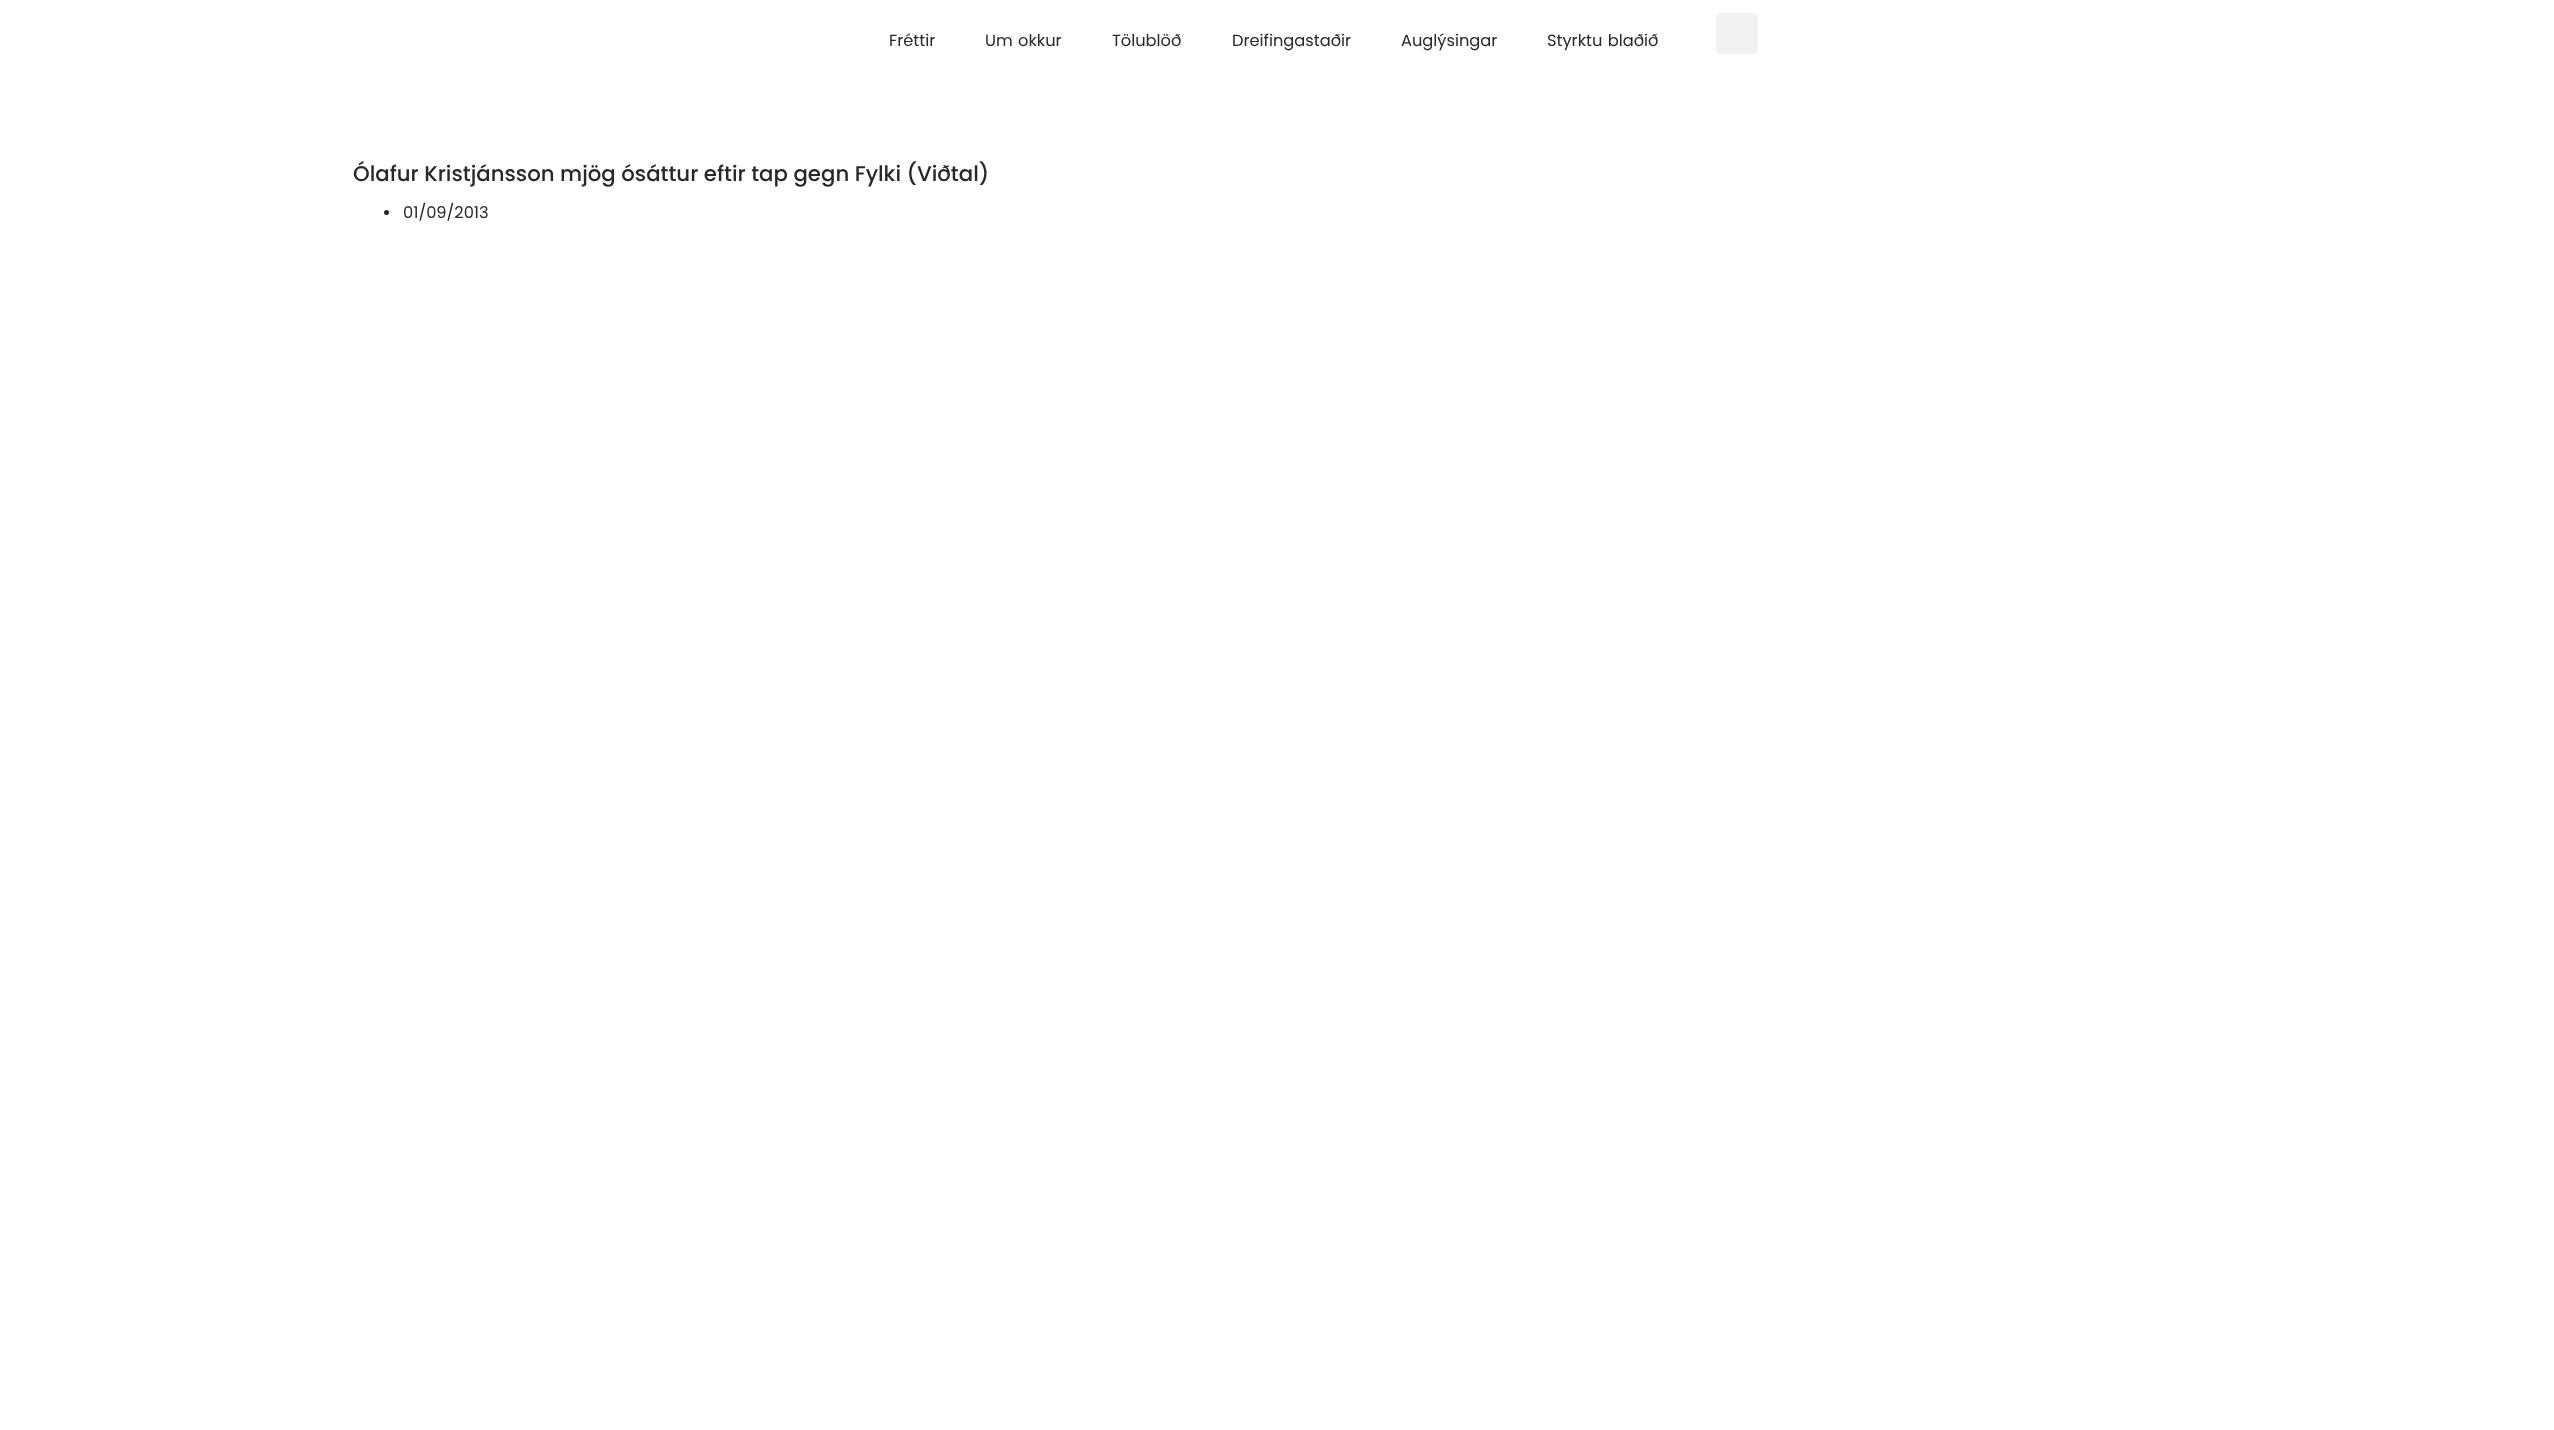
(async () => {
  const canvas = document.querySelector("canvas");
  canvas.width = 2554;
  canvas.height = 1430;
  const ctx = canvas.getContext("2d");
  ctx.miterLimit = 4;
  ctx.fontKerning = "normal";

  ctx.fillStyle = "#ffffff";
  ctx.fillRect(0, 0, 2554, 1430);
  ctx.fillStyle = "#f2f2f2";
  ctx.beginPath();
  ctx.roundRect(1716, 13, 42, 41, 4);
  ctx.fill();
  ctx.fillStyle = "#292727";
  ctx.beginPath();
  ctx.arc(386.5, 212.5, 2.5, 0, Math.PI * 2);
  ctx.fill();
  ctx.font = "16.25px Poppins";
  ctx.fillText("Fréttir", 889, 46);
  ctx.wordSpacing = "1px";
  ctx.fillText("Um okkur", 985, 46);
  ctx.wordSpacing = "0px";
  for (const [text, x, y] of [
    ["Tölublöð", 1112, 46],
    ["Dreifingastaðir", 1232, 46],
    ["Auglýsingar", 1401, 46],
  ]) {
    ctx.fillText(text, x, y);
  }
  ctx.wordSpacing = "1px";
  ctx.fillText("Styrktu blaðið", 1547, 46);
  ctx.wordSpacing = "0px";
  ctx.font = "500 21.25px Poppins";
  ctx.fillText("Ólafur Kristjánsson mjög ósáttur eftir tap gegn Fylki (Viðtal)", 353, 181);
  ctx.font = "16.25px Poppins";
  ctx.fillText("01/09/2013", 403, 218);
})();
